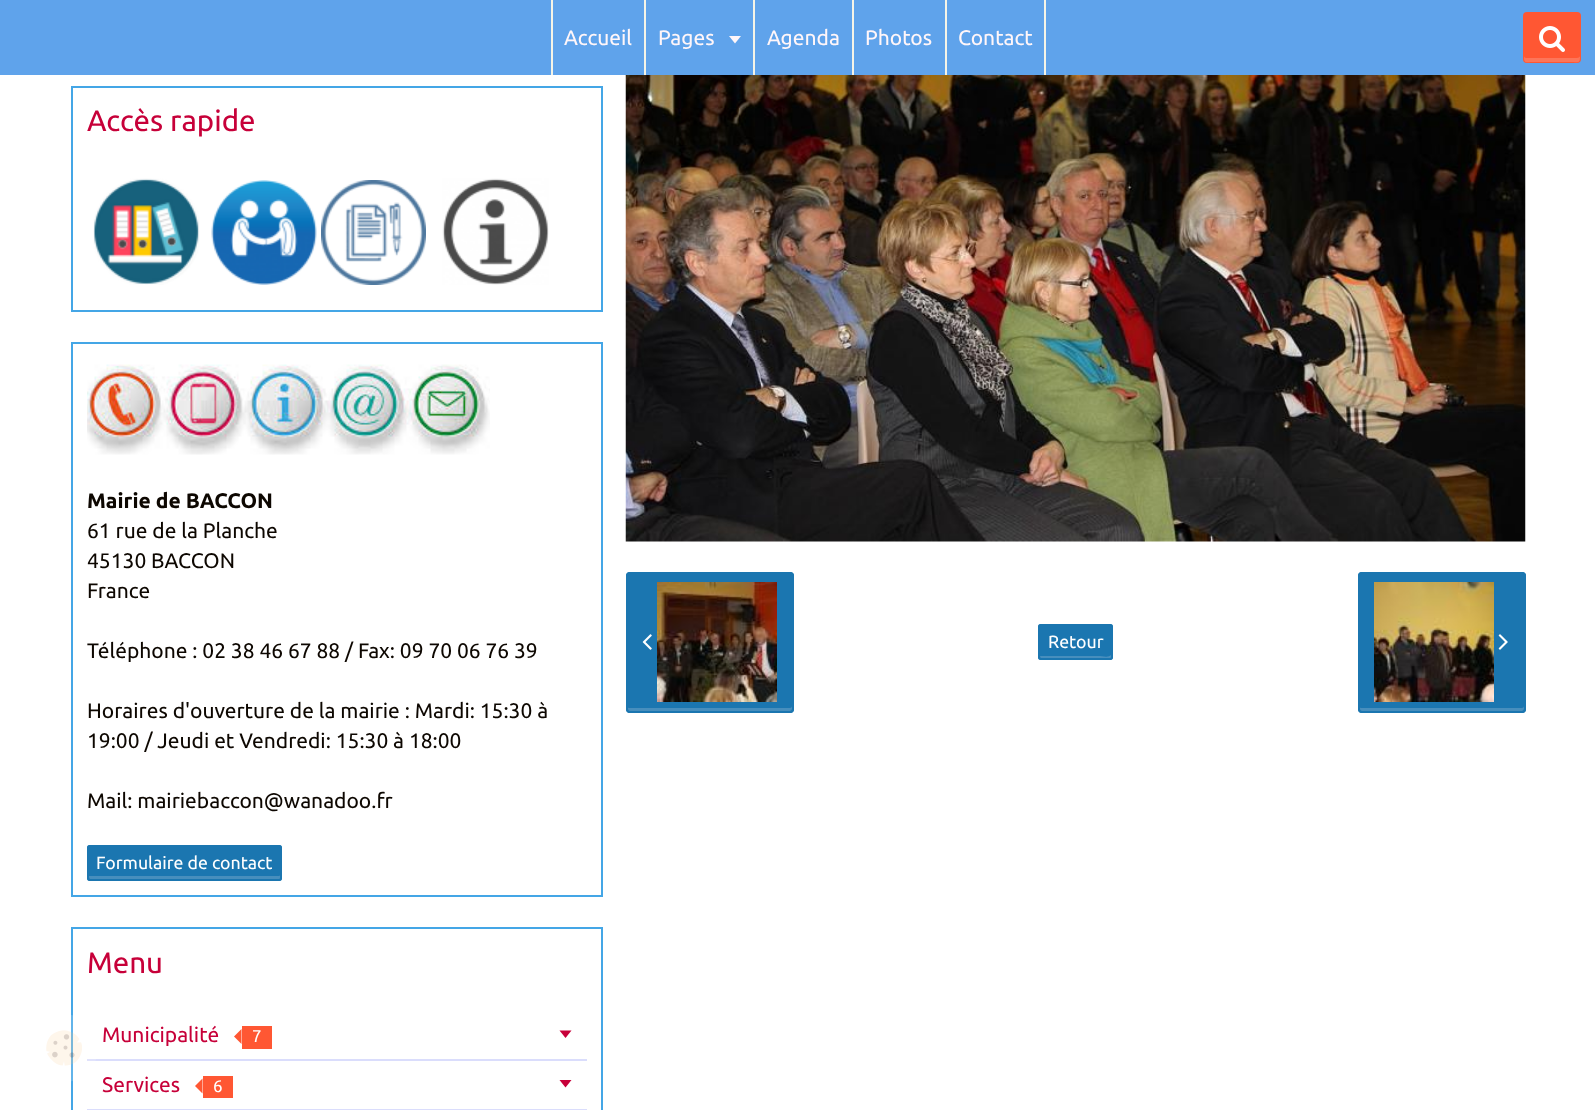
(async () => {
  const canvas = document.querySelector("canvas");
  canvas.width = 1595;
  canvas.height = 1110;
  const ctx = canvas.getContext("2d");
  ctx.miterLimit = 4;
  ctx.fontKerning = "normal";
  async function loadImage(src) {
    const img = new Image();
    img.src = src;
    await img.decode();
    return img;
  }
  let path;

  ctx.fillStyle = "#ffffff";
  ctx.fillRect(0, 0, 1595, 1110);
  for (const [x, y, w, h, color] of [
    [0, 0, 1595, 75, "#5fa3eb"],
    [644, 0, 2, 75, "#f5f4e7"],
    [551, 0, 2, 75, "#f5f4e7"],
    [753, 0, 2, 75, "#f5f4e7"],
  ]) {
    ctx.fillStyle = color;
    ctx.fillRect(x, y, w, h);
  }
  ctx.fillStyle = "#fff6f9";
  path = new Path2D("M729 36H741L735 43.5Z");
  ctx.fill(path);
  for (const [x, y, w, h, color] of [
    [852, 0, 2, 75, "#f5f4e7"],
    [945, 0, 2, 75, "#f5f4e7"],
    [1044, 0, 2, 75, "#f5f4e7"],
  ]) {
    ctx.fillStyle = color;
    ctx.fillRect(x, y, w, h);
  }
  ctx.fillStyle = "#ff5733";
  ctx.beginPath();
  ctx.roundRect(1523, 12, 58, 51, 4);
  ctx.fill();
  ctx.fillStyle = "#fd7559";
  path = new Path2D("M1524 56C1524 64 1525 62 1535 62H1569C1579 62 1580 64 1580 56C1580 57 1578 58 1577 58H1526C1525 58 1524 57 1524 56Z");
  ctx.fill(path);
  ctx.drawImage(await loadImage("img/1.png"), 1539, 26, 26, 26);
  ctx.strokeStyle = "#44a6e6";
  ctx.lineWidth = 2;
  ctx.strokeRect(72, 928, 530, 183);
  ctx.fillStyle = "#daddfc";
  ctx.fillRect(87, 1059, 500, 2);
  ctx.fillStyle = "rgba(255, 255, 255, 0.16)";
  ctx.beginPath();
  ctx.arc(64, 1048, 34, 0, Math.PI * 2);
  ctx.fill();
  ctx.drawImage(await loadImage("img/2.png"), 46, 1030, 36, 36);
  ctx.strokeRect(72, 87, 530, 224);
  ctx.drawImage(await loadImage("img/3.png"), 93, 178, 107, 107);
  ctx.drawImage(await loadImage("img/4.png"), 211, 180, 106, 105);
  ctx.drawImage(await loadImage("img/5.png"), 321, 180, 105, 105);
  ctx.drawImage(await loadImage("img/6.png"), 442, 178, 107, 107);
  ctx.strokeRect(72, 343, 530, 553);
  ctx.drawImage(await loadImage("img/7.png"), 87, 364, 403, 91);
  ctx.fillStyle = "#1b76b0";
  ctx.beginPath();
  ctx.roundRect(87, 845, 195, 36, 3);
  ctx.fill();
  ctx.fillStyle = "#478ebd";
  path = new Path2D("M89 876C89 877 89 879 90 879H280C280 879 281 878 281 878V847L280 846V874C280 875 280 876 279 876Z");
  ctx.fill(path);
  ctx.beginPath();
  ctx.roundRect(88, 846, 193, 34, 2);
  ctx.strokeStyle = "#1b76b0";
  ctx.stroke();
  ctx.fillStyle = "#ff5733";
  ctx.fillRect(242, 1026, 30, 23);
  path = new Path2D("M241.5 1029V1044L234 1036.5Z");
  ctx.fill(path);
  ctx.fillStyle = "#c70039";
  path = new Path2D("M559.5 1030.5H571.5L565.5 1038Z");
  ctx.fill(path);
  ctx.fillStyle = "#daddfc";
  ctx.fillRect(87, 1109, 500, 1);
  ctx.fillStyle = "#ff5733";
  ctx.fillRect(203, 1076, 30, 22);
  path = new Path2D("M202.5 1078.5V1093.5L195 1086Z");
  ctx.fill(path);
  ctx.fillStyle = "#c70039";
  path = new Path2D("M559.5 1080H571.5L565.5 1087.5Z");
  ctx.fill(path);
  ctx.drawImage(await loadImage("img/8.png"), 625, 75, 901, 467);
  ctx.fillStyle = "#1b76b0";
  ctx.beginPath();
  ctx.roundRect(626, 572, 168, 141, 4);
  ctx.fill();
  ctx.fillStyle = "#478ebd";
  path = new Path2D("M627 706V709C627 710 628 711 629 711H790C791 711 792 710 792 709V706C792 707 791 708 790 708H629C628 708 627 707 627 706Z");
  ctx.fill(path);
  ctx.beginPath();
  ctx.roundRect(627, 573, 166, 139, 3);
  ctx.stroke();
  ctx.drawImage(await loadImage("img/9.png"), 642, 634, 10, 16);
  ctx.drawImage(await loadImage("img/10.png"), 657, 582, 120, 120);
  ctx.fillStyle = "#1b76b0";
  ctx.beginPath();
  ctx.roundRect(1038, 624, 75, 36, 3);
  ctx.fill();
  ctx.fillStyle = "#478ebd";
  path = new Path2D("M1040 654C1040 662 1042 659 1053 659H1099C1110 659 1112 662 1112 654L1111 655C1108 658 1103 656 1098 656H1040Z");
  ctx.fill(path);
  ctx.beginPath();
  ctx.roundRect(1039, 625, 73, 34, 2);
  ctx.stroke();
  ctx.fillStyle = "#1b76b0";
  ctx.beginPath();
  ctx.roundRect(1358, 572, 168, 141, 4);
  ctx.fill();
  ctx.fillStyle = "#478ebd";
  path = new Path2D("M1359 706V709C1359 710 1360 711 1361 711H1522C1523 711 1524 710 1524 709V706C1524 707 1523 708 1522 708H1361C1360 708 1359 707 1359 706Z");
  ctx.fill(path);
  ctx.beginPath();
  ctx.roundRect(1359, 573, 166, 139, 3);
  ctx.stroke();
  ctx.drawImage(await loadImage("img/11.png"), 1374, 582, 120, 120);
  ctx.drawImage(await loadImage("img/12.png"), 1498, 634, 10, 16);
  ctx.font = "21px Ubuntu";
  ctx.fillStyle = "#fff6f9";
  for (const [text, x, y] of [
    ["Accueil", 564, 45],
    ["Pages", 658, 45],
    ["Agenda", 767, 45],
    ["Photos", 865, 45],
    ["Contact", 958, 45],
  ]) {
    ctx.fillText(text, x, y);
  }
  ctx.font = "29.5px Ubuntu";
  ctx.fillStyle = "#c70039";
  ctx.fillText("Accès rapide", 87, 131);
  ctx.font = "bold 21px Ubuntu";
  ctx.fillStyle = "#0d0701";
  ctx.fillText("Mairie de BACCON", 87, 508);
  ctx.font = "21px Ubuntu";
  for (const [text, x, y] of [
    ["61 rue de la Planche", 87, 538],
    ["45130 BACCON", 87, 568],
    ["France", 87, 598],
    ["Téléphone : 02 38 46 67 88 / Fax: 09 70 06 76 39", 87, 658],
    ["Horaires d'ouverture de la mairie : Mardi: 15:30 à", 87, 718],
    ["19:00 / Jeudi et Vendredi: 15:30 à 18:00", 87, 748],
    ["Mail: mairiebaccon@wanadoo.fr", 87, 808],
  ]) {
    ctx.fillText(text, x, y);
  }
  ctx.font = "17.75px Ubuntu";
  ctx.fillStyle = "#ffffff";
  ctx.fillText("Formulaire de contact", 96, 869);
  ctx.font = "29.5px Ubuntu";
  ctx.fillStyle = "#c70039";
  ctx.fillText("Menu", 87, 973);
  ctx.font = "21px Ubuntu";
  ctx.fillText("Municipalité", 102, 1042);
  ctx.font = "17px Ubuntu";
  ctx.fillStyle = "#ffffff";
  ctx.fillText("7", 252, 1042);
  ctx.font = "21px Ubuntu";
  ctx.fillStyle = "#c70039";
  ctx.fillText("Services", 102, 1092);
  ctx.font = "17px Ubuntu";
  ctx.fillStyle = "#ffffff";
  ctx.fillText("6", 213, 1092);
  ctx.font = "17.75px Ubuntu";
  ctx.fillText("Retour", 1048, 648);
})();
